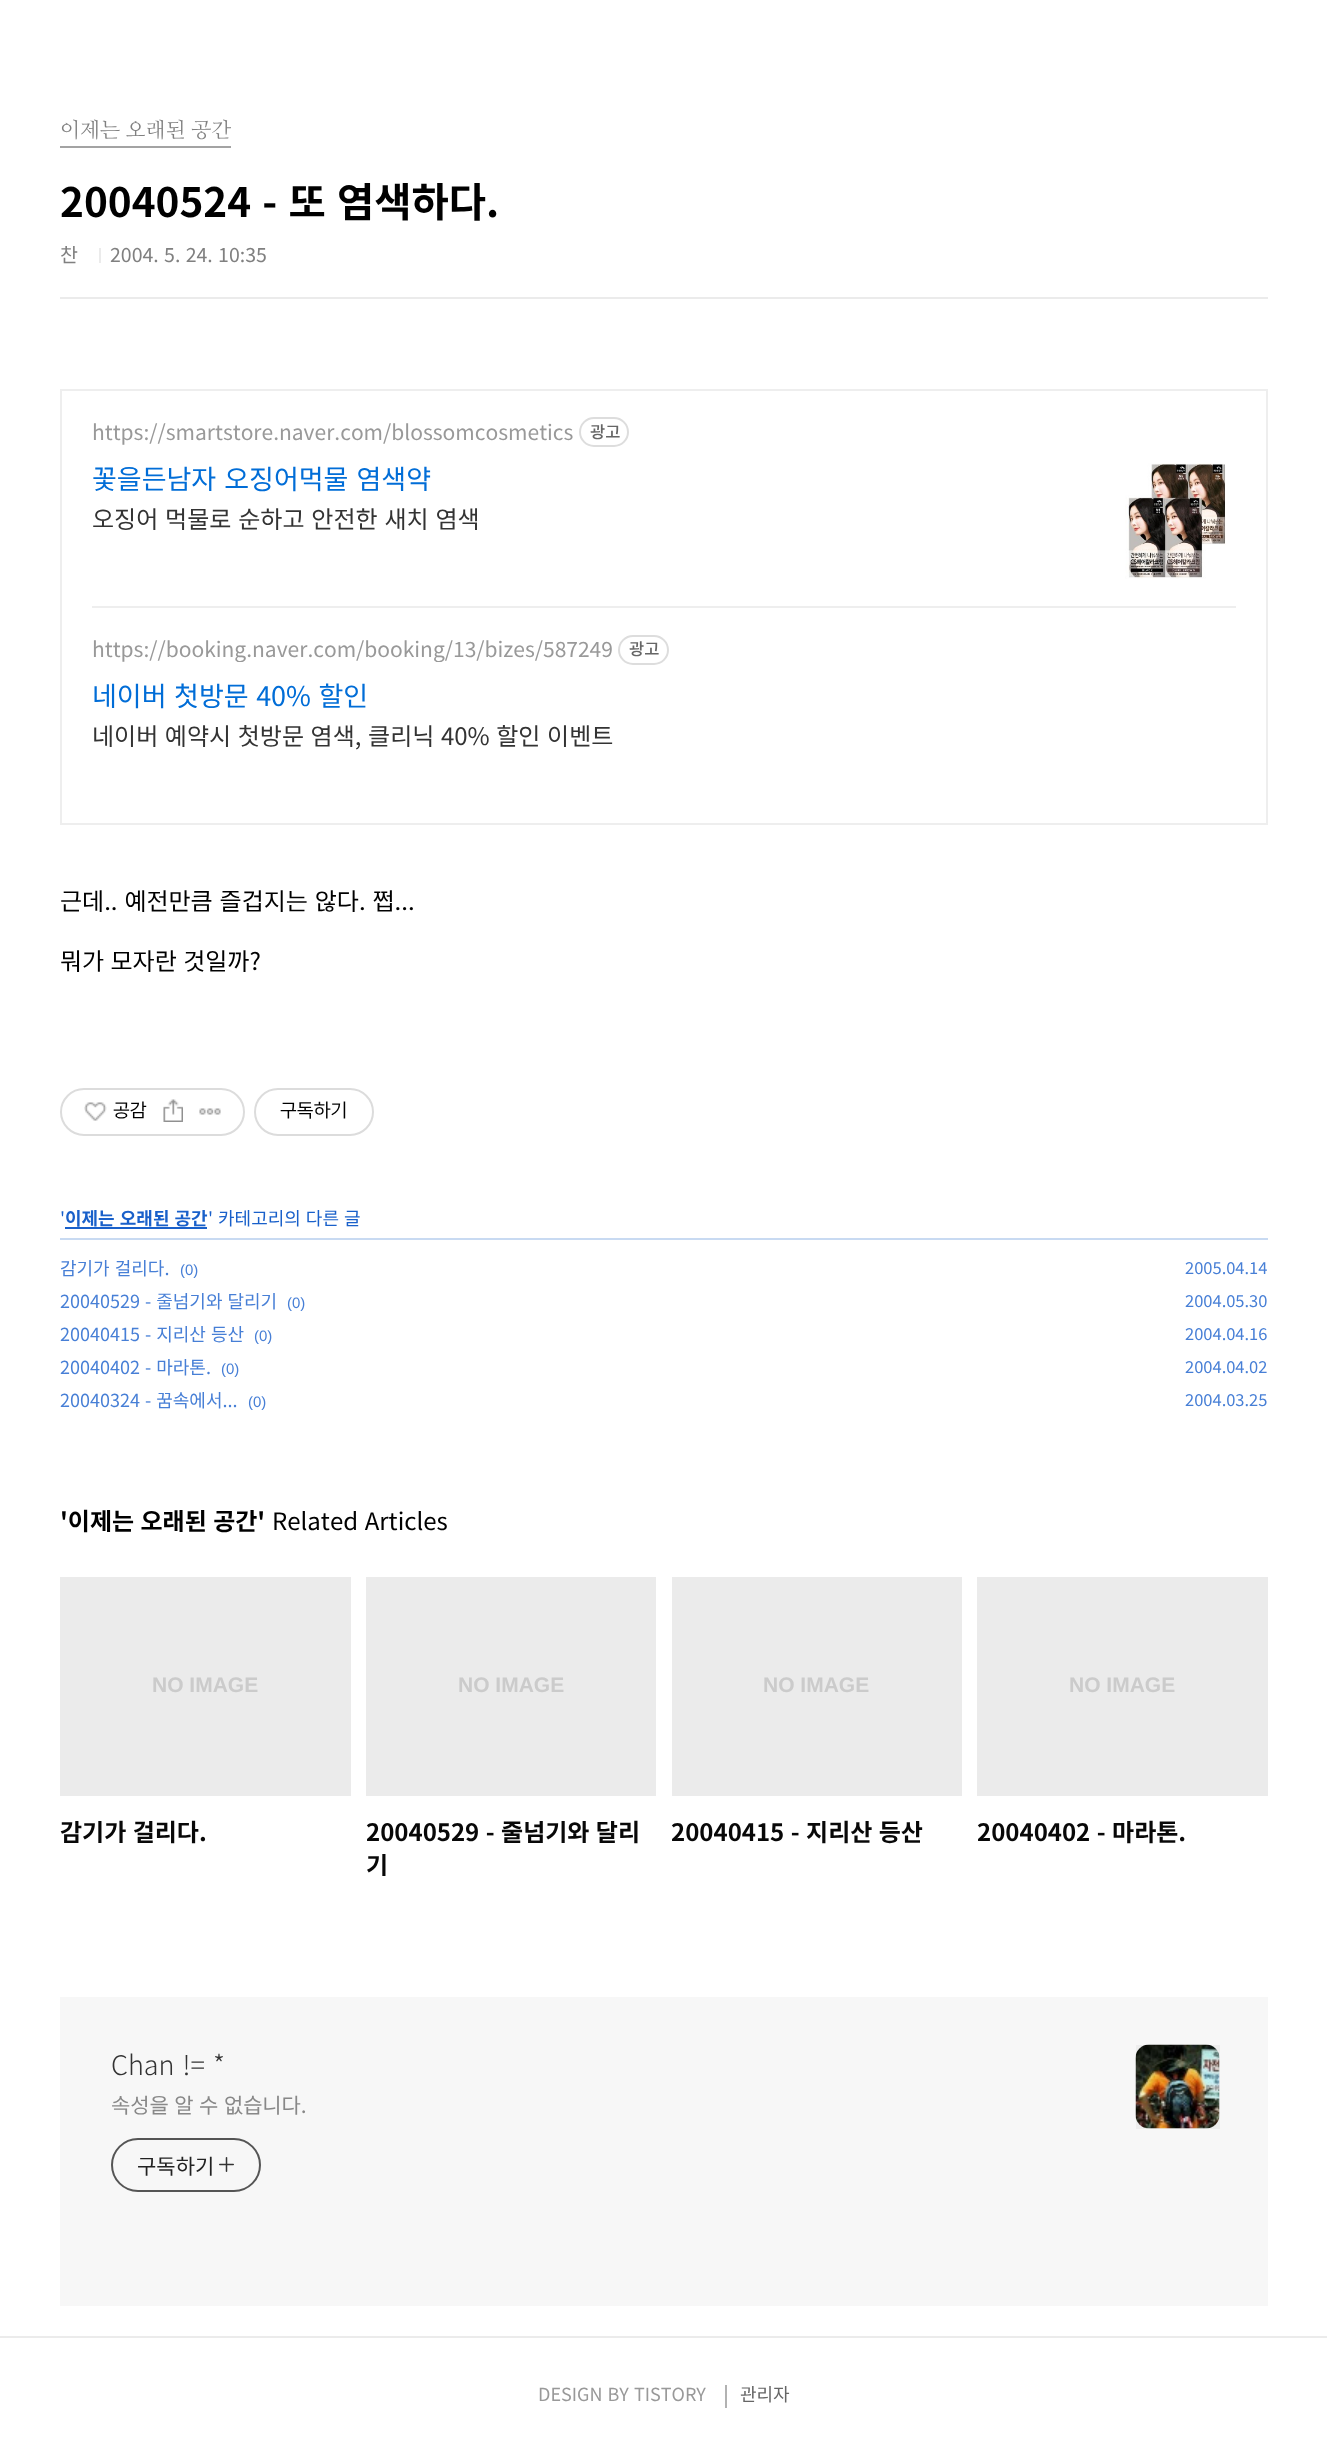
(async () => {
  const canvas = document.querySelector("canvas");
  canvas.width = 1327;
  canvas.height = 2450;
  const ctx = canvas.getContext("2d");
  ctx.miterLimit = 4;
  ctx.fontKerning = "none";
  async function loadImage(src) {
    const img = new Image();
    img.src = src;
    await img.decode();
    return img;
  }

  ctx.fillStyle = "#ffffff";
  ctx.fillRect(0, 0, 1327, 2450);
  for (const [x, y, w, h, color] of [
    [60, 297, 1208, 2, "#ebebeb"],
    [60, 146, 171, 2, "#a3a3a3"],
    [99, 248, 2, 15, "#ebebeb"],
  ]) {
    ctx.fillStyle = color;
    ctx.fillRect(x, y, w, h);
  }
  ctx.strokeStyle = "#eeeeee";
  ctx.lineWidth = 2;
  ctx.strokeRect(61, 390, 1206, 434);
  ctx.beginPath();
  ctx.roundRect(580, 418, 48, 28, 14);
  ctx.strokeStyle = "#dddddd";
  ctx.stroke();
  ctx.drawImage(await loadImage("img/1.png"), 1125, 463, 101, 116);
  ctx.fillStyle = "#eeeeee";
  ctx.fillRect(92, 606, 1144, 2);
  ctx.beginPath();
  ctx.roundRect(619, 636, 49, 28, 14);
  ctx.stroke();
  ctx.beginPath();
  ctx.roundRect(61, 1089, 183, 46, 23);
  ctx.strokeStyle = "#dcdcdc";
  ctx.stroke();
  ctx.drawImage(await loadImage("img/2.png"), 84, 1102, 23, 19);
  ctx.drawImage(await loadImage("img/3.png"), 163, 1099, 20, 23);
  ctx.drawImage(await loadImage("img/4.png"), 199, 1108, 22, 7);
  ctx.beginPath();
  ctx.roundRect(255, 1089, 118, 46, 23);
  ctx.stroke();
  for (const [x, y, w, h, color] of [
    [60, 1238, 1208, 2, "#c8daf2"],
    [65, 1227, 142, 2, "#1960ca"],
    [60, 1577, 291, 219, "#ebebeb"],
    [366, 1577, 290, 219, "#ebebeb"],
    [672, 1577, 290, 219, "#ebebeb"],
    [977, 1577, 291, 219, "#ebebeb"],
    [60, 1997, 1208, 309, "#f7f7f7"],
  ]) {
    ctx.fillStyle = color;
    ctx.fillRect(x, y, w, h);
  }
  ctx.beginPath();
  ctx.roundRect(112, 2139, 148, 52, 26);
  ctx.strokeStyle = "#555555";
  ctx.stroke();
  ctx.drawImage(await loadImage("img/5.png"), 219, 2157, 15, 15);
  ctx.drawImage(await loadImage("img/6.png"), 1135, 2044, 85, 85);
  for (const [x, y, w, h, color] of [
    [1136, 2045, 84, 84, "rgba(0, 0, 0, 0.04)"],
    [0, 2336, 1327, 2, "#ebebeb"],
    [725, 2385, 2, 23, "#b2b2b2"],
  ]) {
    ctx.fillStyle = color;
    ctx.fillRect(x, y, w, h);
  }
  ctx.font = "21px NanumMyeongjo";
  ctx.fillStyle = "#808080";
  ctx.fillText("이제는 오래된 공간", 60, 137);
  ctx.wordSpacing = "2px";
  ctx.font = "bold 40.5px Noto Sans KR";
  ctx.fillStyle = "#000000";
  ctx.fillText("20040524 - 또 염색하다.", 60, 217);
  ctx.wordSpacing = "0px";
  ctx.font = "19.5px Noto Sans KR";
  ctx.fillStyle = "#808080";
  ctx.fillText("찬", 60, 262);
  ctx.wordSpacing = "1px";
  ctx.fillText("2004. 5. 24. 10:35", 110, 262);
  ctx.wordSpacing = "0px";
  ctx.font = "21px Noto Sans KR";
  ctx.fillStyle = "#999999";
  ctx.fillText("https://smartstore.naver.com/blossomcosmetics", 92, 440);
  ctx.font = "500 16.5px Noto Sans KR";
  ctx.fillStyle = "#666666";
  ctx.fillText("광고", 590, 438);
  ctx.wordSpacing = "2px";
  ctx.font = "27px Noto Sans KR";
  ctx.fillStyle = "#016dd7";
  ctx.fillText("꽃을든남자 오징어먹물 염색약", 92, 489);
  ctx.wordSpacing = "1.5px";
  ctx.font = "24px Noto Sans KR";
  ctx.fillStyle = "#333333";
  ctx.fillText("오징어 먹물로 순하고 안전한 새치 염색", 92, 528);
  ctx.save();
  ctx.beginPath();
  ctx.rect(92, 636, 520, 26);
  ctx.clip();
  ctx.wordSpacing = "0px";
  ctx.font = "21px Noto Sans KR";
  ctx.fillStyle = "#999999";
  ctx.fillText("https://booking.naver.com/booking/13/bizes/587249", 92, 657);
  ctx.restore();
  ctx.wordSpacing = "0px";
  ctx.font = "500 16.5px Noto Sans KR";
  ctx.fillStyle = "#666666";
  ctx.fillText("광고", 629, 655);
  ctx.wordSpacing = "1.5px";
  ctx.font = "27px Noto Sans KR";
  ctx.fillStyle = "#016dd7";
  ctx.fillText("네이버 첫방문 40% 할인", 92, 706);
  ctx.wordSpacing = "1.25px";
  ctx.font = "24px Noto Sans KR";
  ctx.fillStyle = "#333333";
  ctx.fillText("네이버 예약시 첫방문 염색, 클리닉 40% 할인 이벤트", 92, 745);
  ctx.wordSpacing = "1.5px";
  ctx.fillStyle = "#000000";
  ctx.fillText("근데.. 예전만큼 즐겁지는 않다. 쩝...", 60, 910);
  ctx.wordSpacing = "1px";
  ctx.fillText("뭐가 모자란 것일까?", 60, 970);
  ctx.wordSpacing = "0px";
  ctx.font = "19.5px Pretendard";
  ctx.fillText("공감", 113, 1117);
  ctx.fillText("구독하기", 280, 1117);
  ctx.font = "18px Noto Sans KR";
  ctx.fillStyle = "#1960ca";
  ctx.fillText("'", 60, 1225);
  ctx.wordSpacing = "1px";
  ctx.font = "bold 18px Noto Sans KR";
  ctx.fillText("이제는 오래된 공간", 65, 1225);
  ctx.font = "18px Noto Sans KR";
  ctx.fillText("' 카테고리의 다른 글", 208, 1225);
  ctx.fillStyle = "#477fd6";
  ctx.fillText("감기가 걸리다.", 60, 1275);
  ctx.wordSpacing = "0px";
  ctx.font = "15px Liberation Sans";
  ctx.fillText("(0)", 180, 1275);
  ctx.font = "16.5px Noto Sans KR";
  ctx.fillText("2005.04.14", 1185, 1274);
  ctx.wordSpacing = "1px";
  ctx.font = "18px Noto Sans KR";
  ctx.fillText("20040529 - 줄넘기와 달리기", 60, 1308);
  ctx.wordSpacing = "0px";
  ctx.font = "15px Liberation Sans";
  ctx.fillText("(0)", 287, 1308);
  ctx.font = "16.5px Noto Sans KR";
  ctx.fillText("2004.05.30", 1185, 1307);
  ctx.wordSpacing = "1px";
  ctx.font = "18px Noto Sans KR";
  ctx.fillText("20040415 - 지리산 등산", 60, 1341);
  ctx.wordSpacing = "0px";
  ctx.font = "15px Liberation Sans";
  ctx.fillText("(0)", 254, 1341);
  ctx.font = "16.5px Noto Sans KR";
  ctx.fillText("2004.04.16", 1185, 1340);
  ctx.wordSpacing = "1px";
  ctx.font = "18px Noto Sans KR";
  ctx.fillText("20040402 - 마라톤.", 60, 1374);
  ctx.wordSpacing = "0px";
  ctx.font = "15px Liberation Sans";
  ctx.fillText("(0)", 221, 1374);
  ctx.font = "16.5px Noto Sans KR";
  ctx.fillText("2004.04.02", 1185, 1373);
  ctx.wordSpacing = "1px";
  ctx.font = "18px Noto Sans KR";
  ctx.fillText("20040324 - 꿈속에서...", 60, 1407);
  ctx.wordSpacing = "0px";
  ctx.font = "15px Liberation Sans";
  ctx.fillText("(0)", 248, 1407);
  ctx.font = "16.5px Noto Sans KR";
  ctx.fillText("2004.03.25", 1185, 1406);
  ctx.wordSpacing = "1px";
  ctx.font = "bold 24px Noto Sans KR";
  ctx.fillStyle = "#000000";
  ctx.fillText("'이제는 오래된 공간'", 60, 1530);
  ctx.wordSpacing = "1.25px";
  ctx.font = "24px Noto Sans KR";
  ctx.fillText("Related Articles", 272, 1530);
  ctx.wordSpacing = "0px";
  ctx.font = "bold 21px Liberation Sans";
  ctx.fillStyle = "#cbcbcb";
  ctx.fillText("NO IMAGE", 152, 1692);
  ctx.wordSpacing = "1px";
  ctx.font = "bold 24px Noto Sans KR";
  ctx.fillStyle = "#080808";
  ctx.fillText("감기가 걸리다.", 60, 1841);
  ctx.wordSpacing = "0px";
  ctx.font = "bold 21px Liberation Sans";
  ctx.fillStyle = "#cbcbcb";
  ctx.fillText("NO IMAGE", 458, 1692);
  ctx.wordSpacing = "1px";
  ctx.font = "bold 24px Noto Sans KR";
  ctx.fillStyle = "#080808";
  ctx.fillText("20040529 - 줄넘기와 달리", 366, 1841);
  ctx.wordSpacing = "0px";
  ctx.fillText("기", 366, 1874);
  ctx.font = "bold 21px Liberation Sans";
  ctx.fillStyle = "#cbcbcb";
  ctx.fillText("NO IMAGE", 763, 1692);
  ctx.wordSpacing = "1px";
  ctx.font = "bold 24px Noto Sans KR";
  ctx.fillStyle = "#080808";
  ctx.fillText("20040415 - 지리산 등산", 671, 1841);
  ctx.wordSpacing = "0px";
  ctx.font = "bold 21px Liberation Sans";
  ctx.fillStyle = "#cbcbcb";
  ctx.fillText("NO IMAGE", 1069, 1692);
  ctx.wordSpacing = "1px";
  ctx.font = "bold 24px Noto Sans KR";
  ctx.fillStyle = "#080808";
  ctx.fillText("20040402 - 마라톤.", 977, 1841);
  ctx.wordSpacing = "2px";
  ctx.font = "300 27px Noto Sans KR";
  ctx.fillStyle = "#333333";
  ctx.fillText("Chan != *", 111, 2075);
  ctx.letterSpacing = "-0.1px";
  ctx.wordSpacing = "1px";
  ctx.font = "21px Noto Sans KR";
  ctx.fillStyle = "#888888";
  ctx.fillText("속성을 알 수 없습니다.", 111, 2113);
  ctx.letterSpacing = "0px";
  ctx.wordSpacing = "0px";
  ctx.fillStyle = "#222222";
  ctx.fillText("구독하기", 137, 2174);
  ctx.wordSpacing = "1px";
  ctx.font = "18px Noto Sans KR";
  ctx.fillStyle = "#999999";
  ctx.fillText("DESIGN BY", 538, 2401);
  ctx.wordSpacing = "0px";
  ctx.fillText("TISTORY", 634, 2401);
  ctx.fillStyle = "#666666";
  ctx.fillText("관리자", 740, 2401);
})();
